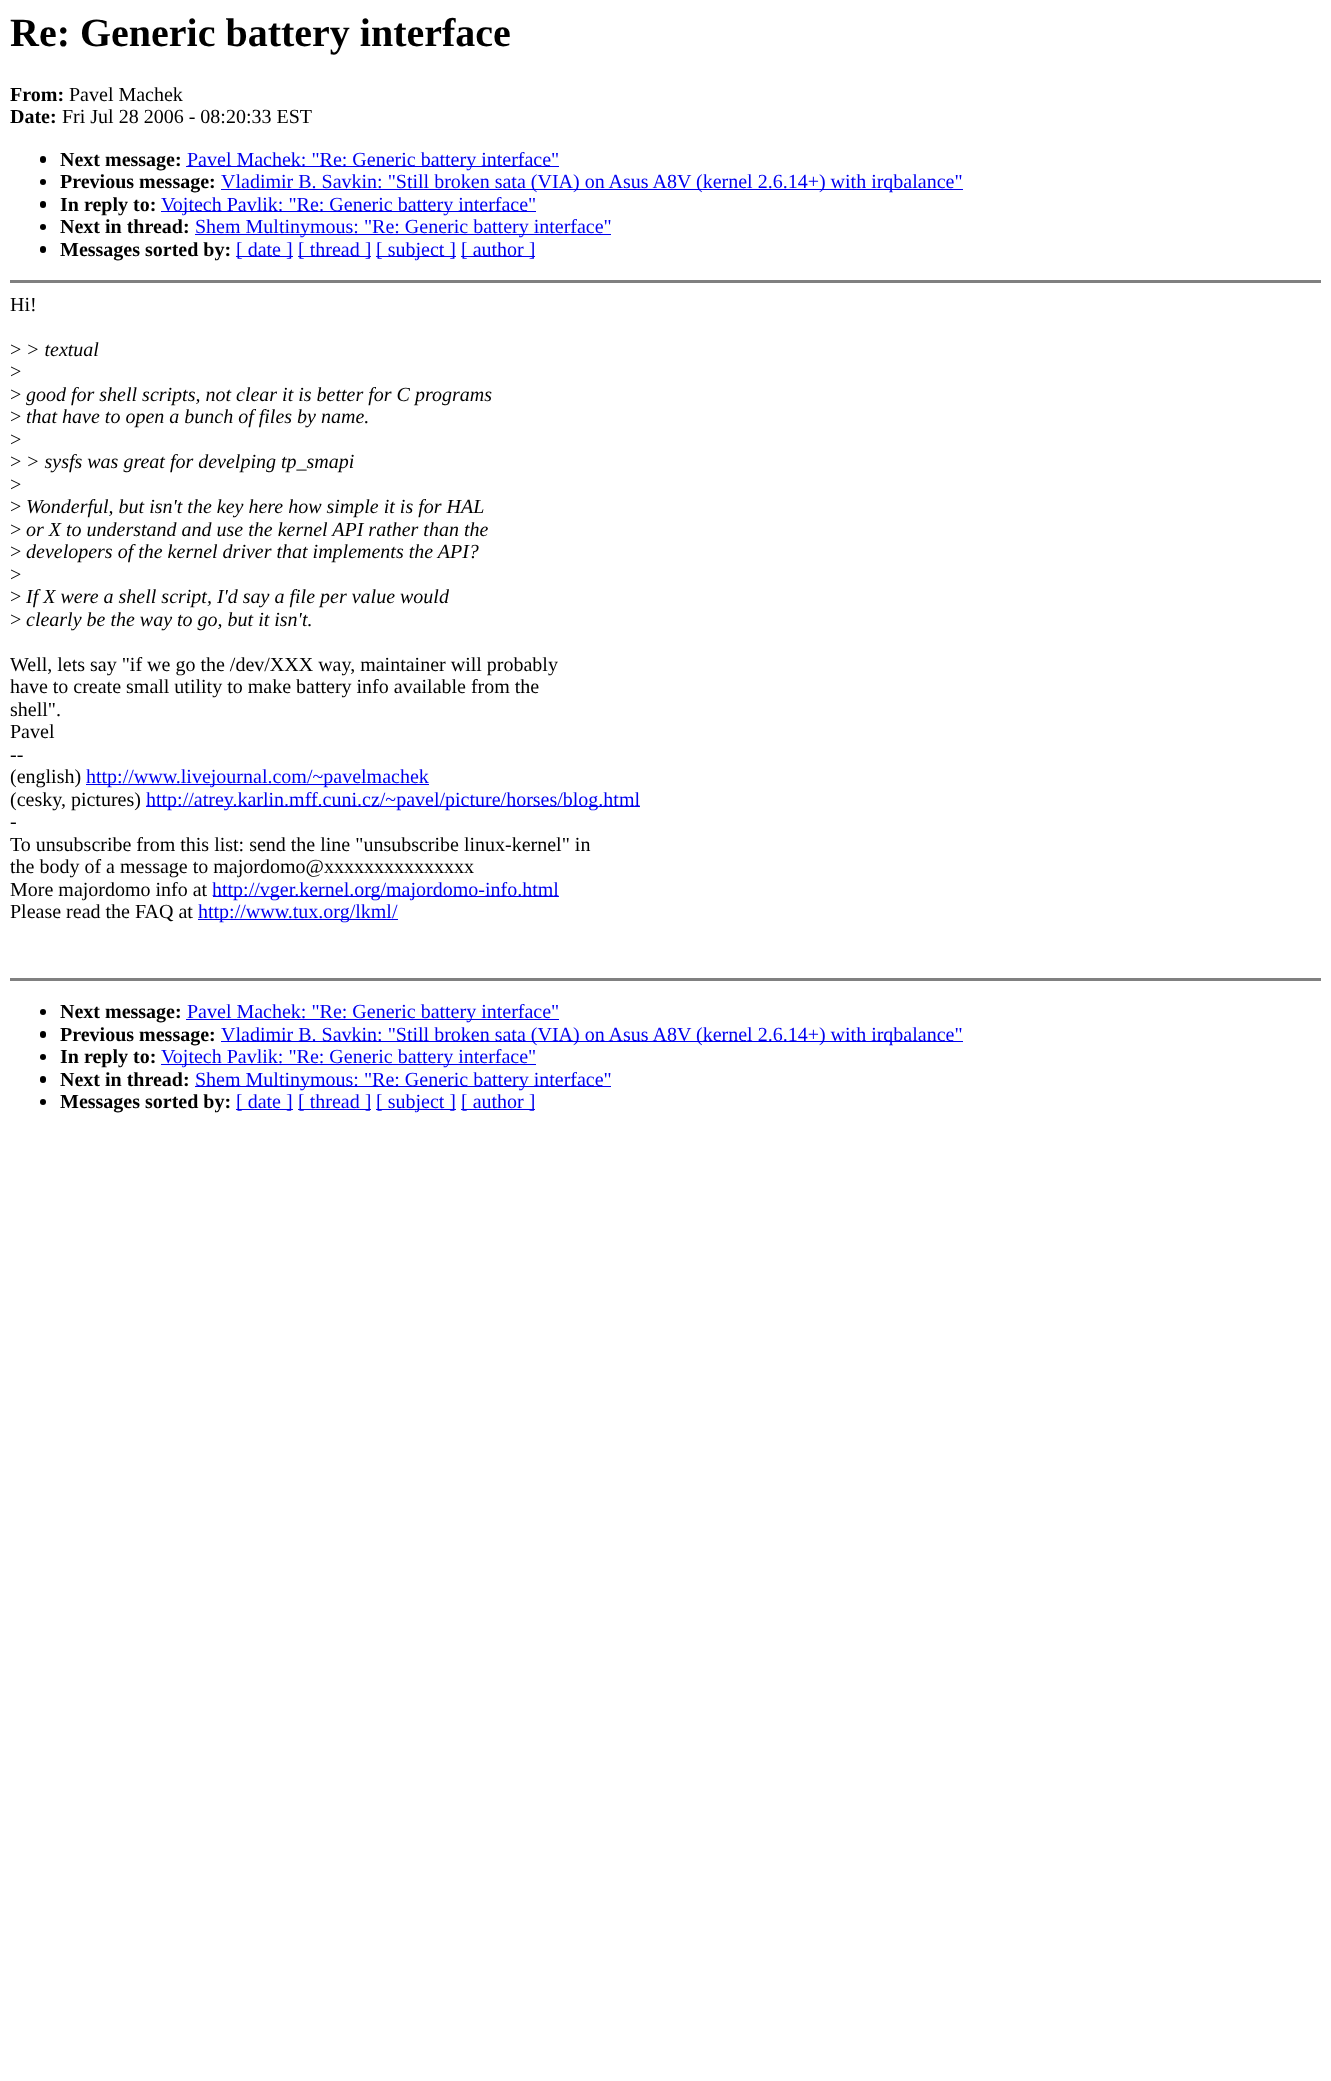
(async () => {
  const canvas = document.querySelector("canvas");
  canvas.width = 1331;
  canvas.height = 2081;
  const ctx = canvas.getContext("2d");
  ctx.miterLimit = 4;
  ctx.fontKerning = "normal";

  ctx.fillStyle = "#ffffff";
  ctx.fillRect(0, 0, 1331, 2081);
  ctx.fillStyle = "#000000";
  ctx.beginPath();
  ctx.roundRect(40, 156, 6, 7, 3);
  ctx.fill();
  ctx.fillStyle = "#0000ee";
  ctx.fillRect(186, 166, 373, 1);
  ctx.fillStyle = "#000000";
  ctx.beginPath();
  ctx.arc(43, 182, 3, 0, Math.PI * 2);
  ctx.fill();
  ctx.fillStyle = "#0000ee";
  ctx.fillRect(221, 189, 742, 1);
  ctx.fillStyle = "#000000";
  ctx.beginPath();
  ctx.roundRect(40, 201, 6, 7, 3);
  ctx.fill();
  ctx.fillStyle = "#0000ee";
  ctx.fillRect(161, 211, 375, 1);
  ctx.fillStyle = "#000000";
  ctx.beginPath();
  ctx.arc(43, 227, 3, 0, Math.PI * 2);
  ctx.fill();
  ctx.fillStyle = "#0000ee";
  ctx.fillRect(195, 234, 416, 1);
  ctx.fillStyle = "#000000";
  ctx.beginPath();
  ctx.roundRect(40, 246, 6, 7, 3);
  ctx.fill();
  for (const [x, y, w, h, color] of [
    [236, 256, 57, 1, "#0000ee"],
    [298, 256, 73, 1, "#0000ee"],
    [376, 256, 80, 1, "#0000ee"],
    [461, 256, 74, 1, "#0000ee"],
    [10, 280, 1311, 3, "#808080"],
    [86, 784, 343, 1, "#0000ee"],
    [146, 806, 494, 1, "#0000ee"],
    [213, 896, 346, 1, "#0000ee"],
    [198, 919, 200, 1, "#0000ee"],
    [10, 978, 1311, 3, "#808080"],
  ]) {
    ctx.fillStyle = color;
    ctx.fillRect(x, y, w, h);
  }
  ctx.fillStyle = "#000000";
  ctx.beginPath();
  ctx.arc(43, 1012, 3, 0, Math.PI * 2);
  ctx.fill();
  ctx.fillStyle = "#0000ee";
  ctx.fillRect(186, 1019, 373, 1);
  ctx.fillStyle = "#000000";
  ctx.beginPath();
  ctx.roundRect(40, 1031, 6, 7, 3);
  ctx.fill();
  ctx.fillStyle = "#0000ee";
  ctx.fillRect(221, 1041, 742, 1);
  ctx.fillStyle = "#000000";
  ctx.beginPath();
  ctx.arc(43, 1057, 3, 0, Math.PI * 2);
  ctx.fill();
  ctx.fillStyle = "#0000ee";
  ctx.fillRect(161, 1064, 375, 1);
  ctx.fillStyle = "#000000";
  ctx.beginPath();
  ctx.roundRect(40, 1076, 6, 7, 3);
  ctx.fill();
  ctx.fillStyle = "#0000ee";
  ctx.fillRect(195, 1086, 416, 1);
  ctx.fillStyle = "#000000";
  ctx.beginPath();
  ctx.arc(43, 1102, 3, 0, Math.PI * 2);
  ctx.fill();
  for (const [x, y, w, h, color] of [
    [236, 1109, 57, 1, "#0000ee"],
    [298, 1109, 73, 1, "#0000ee"],
    [376, 1109, 80, 1, "#0000ee"],
    [461, 1109, 74, 1, "#0000ee"],
  ]) {
    ctx.fillStyle = color;
    ctx.fillRect(x, y, w, h);
  }
  ctx.font = "bold 40px Liberation Serif";
  ctx.fillStyle = "#000000";
  ctx.fillText("Re: Generic battery interface", 10, 46);
  ctx.font = "bold 20px Liberation Serif";
  ctx.fillText("From:", 10, 101);
  ctx.font = "20px Liberation Serif";
  ctx.fillText("Pavel Machek", 69, 101);
  ctx.font = "bold 20px Liberation Serif";
  ctx.fillText("Date:", 10, 123);
  ctx.font = "20px Liberation Serif";
  ctx.fillText("Fri Jul 28 2006 - 08:20:33 EST", 62, 123);
  ctx.font = "bold 20px Liberation Serif";
  ctx.fillText("Next message:", 60, 166);
  ctx.font = "20px Liberation Serif";
  ctx.fillStyle = "#0000ee";
  ctx.fillText("Pavel Machek: \"Re: Generic battery interface\"", 187, 166);
  ctx.font = "bold 20px Liberation Serif";
  ctx.fillStyle = "#000000";
  ctx.fillText("Previous message:", 60, 188);
  ctx.font = "20px Liberation Serif";
  ctx.fillStyle = "#0000ee";
  ctx.fillText("Vladimir B. Savkin: \"Still broken sata (VIA) on Asus A8V (kernel 2.6.14+) with irqbalance\"", 221, 188);
  ctx.font = "bold 20px Liberation Serif";
  ctx.fillStyle = "#000000";
  ctx.fillText("In reply to:", 60, 211);
  ctx.font = "20px Liberation Serif";
  ctx.fillStyle = "#0000ee";
  ctx.fillText("Vojtech Pavlik: \"Re: Generic battery interface\"", 161, 211);
  ctx.font = "bold 20px Liberation Serif";
  ctx.fillStyle = "#000000";
  ctx.fillText("Next in thread:", 60, 233);
  ctx.font = "20px Liberation Serif";
  ctx.fillStyle = "#0000ee";
  ctx.fillText("Shem Multinymous: \"Re: Generic battery interface\"", 195, 233);
  ctx.font = "bold 20px Liberation Serif";
  ctx.fillStyle = "#000000";
  ctx.fillText("Messages sorted by:", 60, 256);
  ctx.font = "20px Liberation Serif";
  ctx.fillStyle = "#0000ee";
  for (const [text, x, y] of [
    ["[ date ]", 236, 256],
    ["[ thread ]", 298, 256],
    ["[ subject ]", 376, 256],
    ["[ author ]", 461, 256],
  ]) {
    ctx.fillText(text, x, y);
  }
  ctx.fillStyle = "#000000";
  ctx.fillText("Hi!", 10, 311);
  ctx.fillText(">", 10, 356);
  ctx.font = "italic 20px Liberation Serif";
  ctx.fillText("> textual", 26, 356);
  ctx.font = "20px Liberation Serif";
  ctx.fillText(">", 10, 378);
  ctx.fillText(">", 10, 401);
  ctx.font = "italic 20px Liberation Serif";
  ctx.fillText("good for shell scripts, not clear it is better for C programs", 26, 401);
  ctx.font = "20px Liberation Serif";
  ctx.fillText(">", 10, 423);
  ctx.font = "italic 20px Liberation Serif";
  ctx.fillText("that have to open a bunch of files by name.", 26, 423);
  ctx.font = "20px Liberation Serif";
  ctx.fillText(">", 10, 446);
  ctx.fillText(">", 10, 468);
  ctx.font = "italic 20px Liberation Serif";
  ctx.fillText("> sysfs was great for develping tp_smapi", 26, 468);
  ctx.font = "20px Liberation Serif";
  ctx.fillText(">", 10, 491);
  ctx.fillText(">", 10, 513);
  ctx.font = "italic 20px Liberation Serif";
  ctx.fillText("Wonderful, but isn't the key here how simple it is for HAL", 26, 513);
  ctx.font = "20px Liberation Serif";
  ctx.fillText(">", 10, 536);
  ctx.font = "italic 20px Liberation Serif";
  ctx.fillText("or X to understand and use the kernel API rather than the", 26, 536);
  ctx.font = "20px Liberation Serif";
  ctx.fillText(">", 10, 558);
  ctx.font = "italic 20px Liberation Serif";
  ctx.fillText("developers of the kernel driver that implements the API?", 26, 558);
  ctx.font = "20px Liberation Serif";
  ctx.fillText(">", 10, 581);
  ctx.fillText(">", 10, 603);
  ctx.font = "italic 20px Liberation Serif";
  ctx.fillText("If X were a shell script, I'd say a file per value would", 26, 603);
  ctx.font = "20px Liberation Serif";
  ctx.fillText(">", 10, 626);
  ctx.font = "italic 20px Liberation Serif";
  ctx.fillText("clearly be the way to go, but it isn't.", 26, 626);
  ctx.font = "20px Liberation Serif";
  for (const [text, x, y] of [
    ["Well, lets say \"if we go the /dev/XXX way, maintainer will probably", 10, 671],
    ["have to create small utility to make battery info available from the", 10, 693],
    ["shell\".", 10, 716],
    ["Pavel", 10, 738],
    ["--", 10, 761],
    ["(english)", 10, 783],
  ]) {
    ctx.fillText(text, x, y);
  }
  ctx.fillStyle = "#0000ee";
  ctx.fillText("http://www.livejournal.com/~pavelmachek", 86, 783);
  ctx.fillStyle = "#000000";
  ctx.fillText("(cesky, pictures)", 10, 806);
  ctx.fillStyle = "#0000ee";
  ctx.fillText("http://atrey.karlin.mff.cuni.cz/~pavel/picture/horses/blog.html", 146, 806);
  ctx.fillStyle = "#000000";
  for (const [text, x, y] of [
    ["-", 10, 828],
    ["To unsubscribe from this list: send the line \"unsubscribe linux-kernel\" in", 10, 851],
    ["the body of a message to majordomo@xxxxxxxxxxxxxxx", 10, 873],
    ["More majordomo info at", 10, 896],
  ]) {
    ctx.fillText(text, x, y);
  }
  ctx.fillStyle = "#0000ee";
  ctx.fillText("http://vger.kernel.org/majordomo-info.html", 212, 896);
  ctx.fillStyle = "#000000";
  ctx.fillText("Please read the FAQ at", 10, 918);
  ctx.fillStyle = "#0000ee";
  ctx.fillText("http://www.tux.org/lkml/", 198, 918);
  ctx.font = "bold 20px Liberation Serif";
  ctx.fillStyle = "#000000";
  ctx.fillText("Next message:", 60, 1018);
  ctx.font = "20px Liberation Serif";
  ctx.fillStyle = "#0000ee";
  ctx.fillText("Pavel Machek: \"Re: Generic battery interface\"", 187, 1018);
  ctx.font = "bold 20px Liberation Serif";
  ctx.fillStyle = "#000000";
  ctx.fillText("Previous message:", 60, 1041);
  ctx.font = "20px Liberation Serif";
  ctx.fillStyle = "#0000ee";
  ctx.fillText("Vladimir B. Savkin: \"Still broken sata (VIA) on Asus A8V (kernel 2.6.14+) with irqbalance\"", 221, 1041);
  ctx.font = "bold 20px Liberation Serif";
  ctx.fillStyle = "#000000";
  ctx.fillText("In reply to:", 60, 1063);
  ctx.font = "20px Liberation Serif";
  ctx.fillStyle = "#0000ee";
  ctx.fillText("Vojtech Pavlik: \"Re: Generic battery interface\"", 161, 1063);
  ctx.font = "bold 20px Liberation Serif";
  ctx.fillStyle = "#000000";
  ctx.fillText("Next in thread:", 60, 1086);
  ctx.font = "20px Liberation Serif";
  ctx.fillStyle = "#0000ee";
  ctx.fillText("Shem Multinymous: \"Re: Generic battery interface\"", 195, 1086);
  ctx.font = "bold 20px Liberation Serif";
  ctx.fillStyle = "#000000";
  ctx.fillText("Messages sorted by:", 60, 1108);
  ctx.font = "20px Liberation Serif";
  ctx.fillStyle = "#0000ee";
  for (const [text, x, y] of [
    ["[ date ]", 236, 1108],
    ["[ thread ]", 298, 1108],
    ["[ subject ]", 376, 1108],
    ["[ author ]", 461, 1108],
  ]) {
    ctx.fillText(text, x, y);
  }
})();
